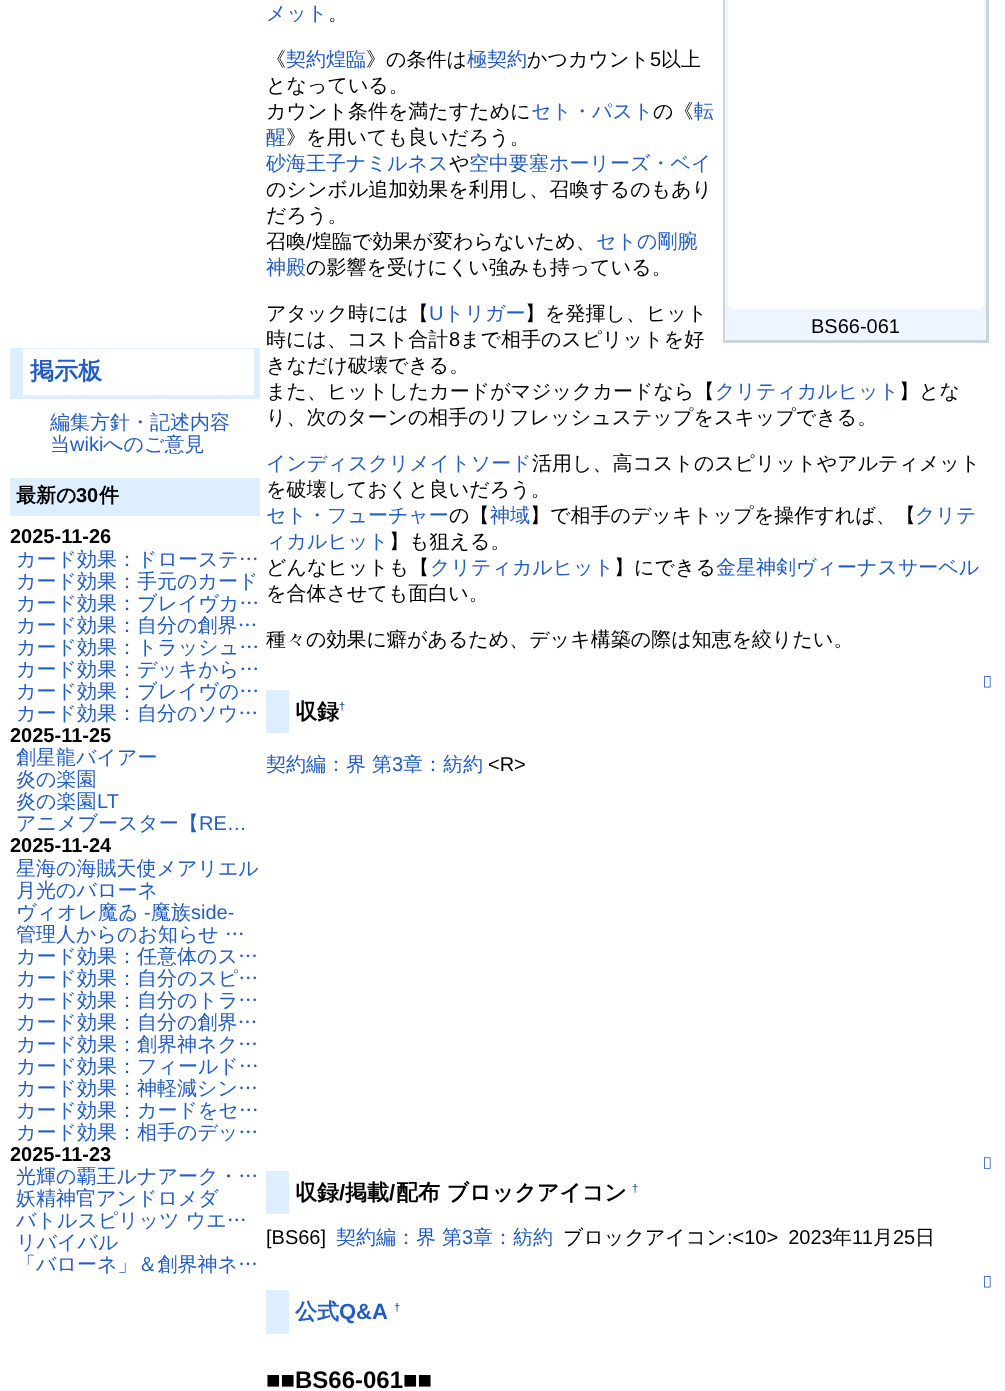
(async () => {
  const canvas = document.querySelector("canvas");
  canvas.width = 1005;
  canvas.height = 1391;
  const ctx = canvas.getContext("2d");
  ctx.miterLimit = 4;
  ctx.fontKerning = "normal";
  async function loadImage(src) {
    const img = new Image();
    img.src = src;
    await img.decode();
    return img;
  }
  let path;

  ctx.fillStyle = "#ffffff";
  ctx.fillRect(0, 0, 1005, 1391);
  for (const [x, y, w, h, color] of [
    [23, 348, 237, 1, "#ddeeff"],
    [254, 348, 6, 51, "#ddeeff"],
    [23, 395, 237, 4, "#ddeeff"],
    [10, 348, 13, 51, "#ddeeff"],
    [10, 478, 250, 38, "#ddeeff"],
    [723, 0, 266, 343, "#ccd5dd"],
    [725, 0, 261, 340, "#eef5ff"],
  ]) {
    ctx.fillStyle = color;
    ctx.fillRect(x, y, w, h);
  }
  ctx.fillStyle = "#ffffff";
  path = new Path2D("M728-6H978C981.5-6 984-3.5 984 0V303C984 306.5 981.5 309 978 309H734C730.5 309 728 306.5 728 303Z");
  ctx.fill(path);
  ctx.drawImage(await loadImage("img/1.png"), 984, 676, 7, 12);
  ctx.fillStyle = "#ddeeff";
  ctx.fillRect(266, 690, 23, 43);
  ctx.drawImage(await loadImage("img/2.png"), 984, 1157, 7, 12);
  ctx.fillRect(266, 1171, 23, 43);
  ctx.drawImage(await loadImage("img/1.png"), 984, 1276, 7, 12);
  ctx.fillRect(266, 1290, 23, 44);
  ctx.font = "bold 24px WenQuanYi Zen Hei";
  ctx.fillStyle = "#215dc6";
  ctx.fillText("掲示板", 30, 379);
  ctx.font = "500 20px WenQuanYi Zen Hei";
  ctx.fillText("編集方針・記述内容", 50, 429);
  ctx.fillText("当", 50, 451);
  ctx.font = "20px Liberation Sans";
  ctx.fillText("wiki", 70, 451);
  ctx.font = "500 20px WenQuanYi Zen Hei";
  ctx.fillText("へのご意見", 103, 451);
  ctx.font = "bold 20px WenQuanYi Zen Hei";
  ctx.fillStyle = "#000000";
  ctx.fillText("最新の", 16, 502);
  ctx.font = "bold 20px Liberation Sans";
  ctx.fillText("30", 76, 502);
  ctx.font = "bold 20px WenQuanYi Zen Hei";
  ctx.fillText("件", 99, 502);
  ctx.font = "bold 20px Liberation Sans";
  ctx.fillText("2025-11-26", 10, 543);
  ctx.font = "500 20px WenQuanYi Zen Hei";
  ctx.fillStyle = "#215dc6";
  for (const [text, x, y] of [
    ["カード効果：ドローステ…", 16, 566],
    ["カード効果：手元のカード", 16, 588],
    ["カード効果：ブレイヴカ…", 16, 610],
    ["カード効果：自分の創界…", 16, 632],
    ["カード効果：トラッシュ…", 16, 654],
    ["カード効果：デッキから…", 16, 676],
    ["カード効果：ブレイヴの…", 16, 698],
    ["カード効果：自分のソウ…", 16, 720],
  ]) {
    ctx.fillText(text, x, y);
  }
  ctx.font = "bold 20px Liberation Sans";
  ctx.fillStyle = "#000000";
  ctx.fillText("2025-11-25", 10, 742);
  ctx.font = "500 20px WenQuanYi Zen Hei";
  ctx.fillStyle = "#215dc6";
  for (const [text, x, y] of [
    ["創星龍バイアー", 16, 764],
    ["炎の楽園", 16, 786],
    ["炎の楽園", 16, 808],
  ]) {
    ctx.fillText(text, x, y);
  }
  ctx.font = "20px Liberation Sans";
  ctx.fillText("LT", 97, 808);
  ctx.font = "500 20px WenQuanYi Zen Hei";
  ctx.fillText("アニメブースター【", 16, 830);
  ctx.font = "20px Liberation Sans";
  ctx.fillText("RE…", 199, 830);
  ctx.font = "bold 20px Liberation Sans";
  ctx.fillStyle = "#000000";
  ctx.fillText("2025-11-24", 10, 852);
  ctx.font = "500 20px WenQuanYi Zen Hei";
  ctx.fillStyle = "#215dc6";
  for (const [text, x, y] of [
    ["星海の海賊天使メアリエル", 16, 875],
    ["月光のバローネ", 16, 897],
    ["ヴィオレ魔ゐ", 16, 919],
  ]) {
    ctx.fillText(text, x, y);
  }
  ctx.font = "20px Liberation Sans";
  ctx.fillText("-", 144, 919);
  ctx.font = "500 20px WenQuanYi Zen Hei";
  ctx.fillText("魔族", 151, 919);
  ctx.font = "20px Liberation Sans";
  ctx.fillText("side-", 191, 919);
  ctx.font = "500 20px WenQuanYi Zen Hei";
  for (const [text, x, y] of [
    ["管理人からのお知らせ …", 16, 941],
    ["カード効果：任意体のス…", 16, 963],
    ["カード効果：自分のスピ…", 16, 985],
    ["カード効果：自分のトラ…", 16, 1007],
    ["カード効果：自分の創界…", 16, 1029],
    ["カード効果：創界神ネク…", 16, 1051],
    ["カード効果：フィールド…", 16, 1073],
    ["カード効果：神軽減シン…", 16, 1095],
    ["カード効果：カードをセ…", 16, 1117],
    ["カード効果：相手のデッ…", 16, 1139],
  ]) {
    ctx.fillText(text, x, y);
  }
  ctx.font = "bold 20px Liberation Sans";
  ctx.fillStyle = "#000000";
  ctx.fillText("2025-11-23", 10, 1161);
  ctx.font = "500 20px WenQuanYi Zen Hei";
  ctx.fillStyle = "#215dc6";
  for (const [text, x, y] of [
    ["光輝の覇王ルナアーク・…", 16, 1183],
    ["妖精神官アンドロメダ", 16, 1205],
    ["バトルスピリッツ ウエ…", 16, 1227],
    ["リバイバル", 16, 1249],
    ["「バローネ」＆創界神ネ…", 16, 1271],
    ["メット", 266, 20],
  ]) {
    ctx.fillText(text, x, y);
  }
  ctx.fillStyle = "#000000";
  ctx.fillText("。", 328, 20);
  ctx.fillText("《", 266, 66);
  ctx.fillStyle = "#215dc6";
  ctx.fillText("契約煌臨", 286, 66);
  ctx.fillStyle = "#000000";
  ctx.fillText("》の条件は", 366, 66);
  ctx.fillStyle = "#215dc6";
  ctx.fillText("極契約", 467, 66);
  ctx.fillStyle = "#000000";
  ctx.fillText("かつカウント", 527, 66);
  ctx.font = "20px Liberation Sans";
  ctx.fillText("5", 650, 66);
  ctx.font = "500 20px WenQuanYi Zen Hei";
  for (const [text, x, y] of [
    ["以上", 661, 66],
    ["となっている。", 266, 92],
    ["カウント条件を満たすために", 266, 118],
  ]) {
    ctx.fillText(text, x, y);
  }
  ctx.fillStyle = "#215dc6";
  ctx.fillText("セト・パスト", 531, 118);
  ctx.fillStyle = "#000000";
  ctx.fillText("の《", 653, 118);
  ctx.fillStyle = "#215dc6";
  ctx.fillText("転", 694, 118);
  ctx.fillText("醒", 266, 144);
  ctx.fillStyle = "#000000";
  ctx.fillText("》を用いても良いだろう。", 286, 144);
  ctx.fillStyle = "#215dc6";
  ctx.fillText("砂海王子ナミルネス", 266, 170);
  ctx.fillStyle = "#000000";
  ctx.fillText("や", 449, 170);
  ctx.fillStyle = "#215dc6";
  ctx.fillText("空中要塞ホーリーズ・ベイ", 469, 170);
  ctx.fillStyle = "#000000";
  for (const [text, x, y] of [
    ["のシンボル追加効果を利用し、召喚するのもあり", 266, 196],
    ["だろう。", 266, 222],
    ["召喚", 266, 248],
  ]) {
    ctx.fillText(text, x, y);
  }
  ctx.font = "20px Liberation Sans";
  ctx.fillText("/", 306, 248);
  ctx.font = "500 20px WenQuanYi Zen Hei";
  ctx.fillText("煌臨で効果が変わらないため、", 312, 248);
  ctx.fillStyle = "#215dc6";
  ctx.fillText("セトの剛腕", 596, 248);
  ctx.fillText("神殿", 266, 274);
  ctx.fillStyle = "#000000";
  ctx.fillText("の影響を受けにくい強みも持っている。", 306, 274);
  ctx.fillText("アタック時には【", 266, 320);
  ctx.font = "20px Liberation Sans";
  ctx.fillStyle = "#215dc6";
  ctx.fillText("U", 429, 320);
  ctx.font = "500 20px WenQuanYi Zen Hei";
  ctx.fillText("トリガー", 444, 320);
  ctx.fillStyle = "#000000";
  ctx.fillText("】を発揮し、ヒット", 525, 320);
  ctx.fillText("時には、コスト合計", 266, 346);
  ctx.font = "20px Liberation Sans";
  ctx.fillText("8", 449, 346);
  ctx.font = "500 20px WenQuanYi Zen Hei";
  for (const [text, x, y] of [
    ["まで相手のスピリットを好", 460, 346],
    ["きなだけ破壊できる。", 266, 372],
    ["また、ヒットしたカードがマジックカードなら【", 266, 398],
  ]) {
    ctx.fillText(text, x, y);
  }
  ctx.fillStyle = "#215dc6";
  ctx.fillText("クリティカルヒット", 715, 398);
  ctx.fillStyle = "#000000";
  ctx.fillText("】とな", 899, 398);
  ctx.fillText("り、次のターンの相手のリフレッシュステップをスキップできる。", 266, 424);
  ctx.font = "20px Liberation Sans";
  ctx.fillText("BS66-061", 811, 333);
  ctx.font = "500 20px WenQuanYi Zen Hei";
  ctx.fillStyle = "#215dc6";
  ctx.fillText("インディスクリメイトソード", 266, 470);
  ctx.fillStyle = "#000000";
  ctx.fillText("活用し、高コストのスピリットやアルティメット", 532, 470);
  ctx.fillText("を破壊しておくと良いだろう。", 266, 496);
  ctx.fillStyle = "#215dc6";
  ctx.fillText("セト・フューチャー", 266, 522);
  ctx.fillStyle = "#000000";
  ctx.fillText("の【", 449, 522);
  ctx.fillStyle = "#215dc6";
  ctx.fillText("神域", 490, 522);
  ctx.fillStyle = "#000000";
  ctx.fillText("】で相手のデッキトップを操作すれば、【", 530, 522);
  ctx.fillStyle = "#215dc6";
  ctx.fillText("クリテ", 915, 522);
  ctx.fillText("ィカルヒット", 266, 548);
  ctx.fillStyle = "#000000";
  ctx.fillText("】も狙える。", 389, 548);
  ctx.fillText("どんなヒットも【", 266, 574);
  ctx.fillStyle = "#215dc6";
  ctx.fillText("クリティカルヒット", 430, 574);
  ctx.fillStyle = "#000000";
  ctx.fillText("】にできる", 614, 574);
  ctx.fillStyle = "#215dc6";
  ctx.fillText("金星神剣ヴィーナスサーベル", 716, 574);
  ctx.fillStyle = "#000000";
  ctx.fillText("を合体させても面白い。", 266, 600);
  ctx.fillText("種々の効果に癖があるため、デッキ構築の際は知恵を絞りたい。", 266, 646);
  ctx.font = "bold 22px WenQuanYi Zen Hei";
  ctx.fillText("収録", 295, 719);
  ctx.font = "bold 11px Liberation Sans";
  ctx.fillStyle = "#215dc6";
  ctx.fillText("†", 339, 710);
  ctx.font = "500 20px WenQuanYi Zen Hei";
  ctx.fillText("契約編：界 第", 266, 771);
  ctx.font = "20px Liberation Sans";
  ctx.fillText("3", 392, 771);
  ctx.font = "500 20px WenQuanYi Zen Hei";
  ctx.fillText("章：紡約", 403, 771);
  ctx.font = "20px Liberation Sans";
  ctx.fillStyle = "#000000";
  ctx.fillText("<R>", 488, 771);
  ctx.font = "bold 22px WenQuanYi Zen Hei";
  ctx.fillText("収録", 295, 1200);
  ctx.font = "bold 22px Liberation Sans";
  ctx.fillText("/", 339, 1200);
  ctx.font = "bold 22px WenQuanYi Zen Hei";
  ctx.fillText("掲載", 345, 1200);
  ctx.font = "bold 22px Liberation Sans";
  ctx.fillText("/", 389, 1200);
  ctx.font = "bold 22px WenQuanYi Zen Hei";
  ctx.fillText("配布 ブロックアイコン", 396, 1200);
  ctx.font = "bold 11px Liberation Sans";
  ctx.fillStyle = "#215dc6";
  ctx.fillText("†", 632, 1192);
  ctx.font = "20px Liberation Sans";
  ctx.fillStyle = "#000000";
  ctx.fillText("[BS66]", 266, 1244);
  ctx.font = "500 20px WenQuanYi Zen Hei";
  ctx.fillStyle = "#215dc6";
  ctx.fillText("契約編：界 第", 336, 1244);
  ctx.font = "20px Liberation Sans";
  ctx.fillText("3", 462, 1244);
  ctx.font = "500 20px WenQuanYi Zen Hei";
  ctx.fillText("章：紡約", 473, 1244);
  ctx.fillStyle = "#000000";
  ctx.fillText("ブロックアイコン", 563, 1244);
  ctx.font = "20px Liberation Sans";
  ctx.fillText(":<10> 2023", 727, 1244);
  ctx.font = "500 20px WenQuanYi Zen Hei";
  ctx.fillText("年", 832, 1244);
  ctx.font = "20px Liberation Sans";
  ctx.fillText("11", 852, 1244);
  ctx.font = "500 20px WenQuanYi Zen Hei";
  ctx.fillText("月", 873, 1244);
  ctx.font = "20px Liberation Sans";
  ctx.fillText("25", 893, 1244);
  ctx.font = "500 20px WenQuanYi Zen Hei";
  ctx.fillText("日", 915, 1244);
  ctx.font = "bold 22px WenQuanYi Zen Hei";
  ctx.fillStyle = "#215dc6";
  ctx.fillText("公式", 295, 1319);
  ctx.font = "bold 22px Liberation Sans";
  ctx.fillText("Q&A", 339, 1319);
  ctx.font = "bold 11px Liberation Sans";
  ctx.fillText("†", 394, 1311);
  ctx.font = "bold 24px Liberation Sans";
  ctx.fillStyle = "#000000";
  ctx.fillText("■■BS66-061■■", 266, 1388);
})();
